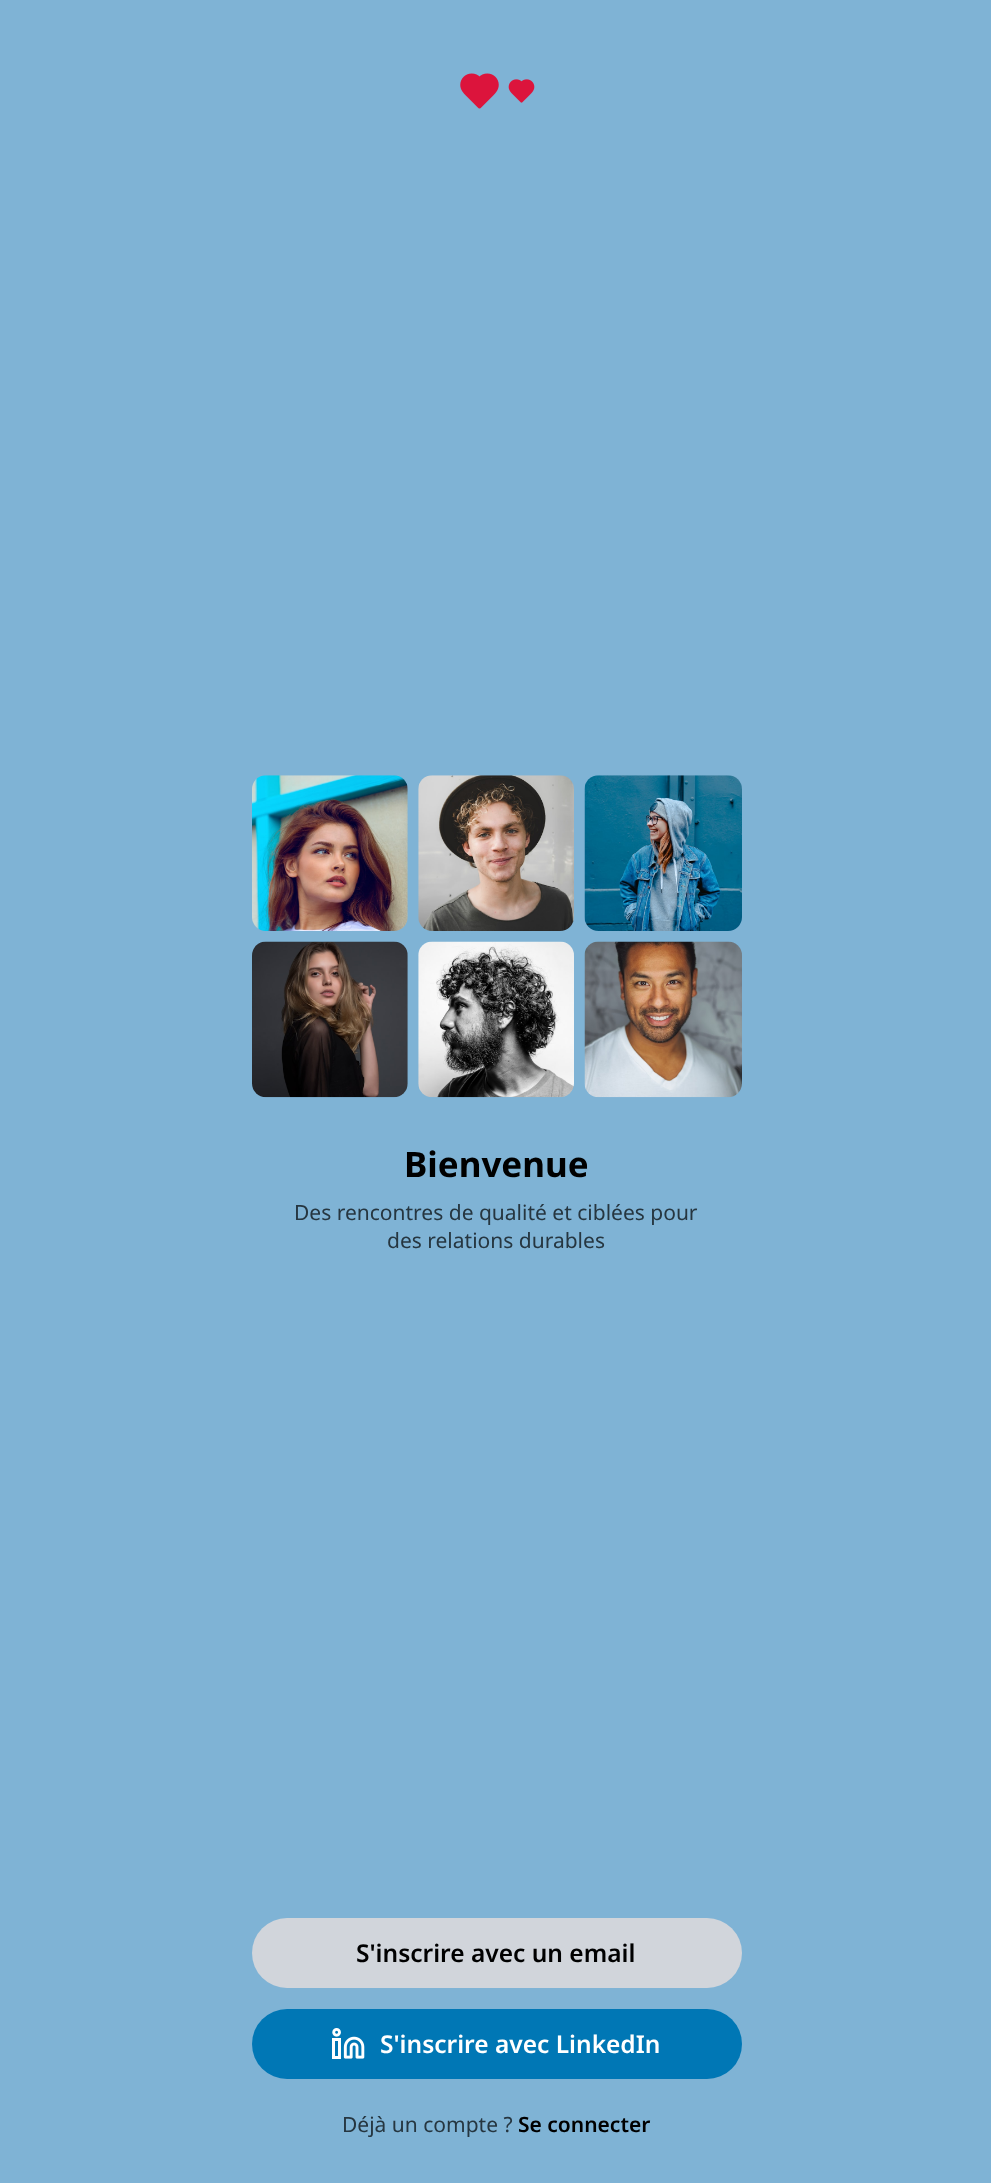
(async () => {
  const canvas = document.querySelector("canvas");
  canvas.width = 991;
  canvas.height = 2183;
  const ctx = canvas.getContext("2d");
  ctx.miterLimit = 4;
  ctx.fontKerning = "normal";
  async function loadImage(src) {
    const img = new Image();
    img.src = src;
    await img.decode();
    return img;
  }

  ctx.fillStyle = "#7fb3d5";
  ctx.fillRect(0, 0, 991, 2183);
  ctx.drawImage(await loadImage("img/1.png"), 460, 73, 39, 36);
  ctx.drawImage(await loadImage("img/2.png"), 508, 79, 27, 24);
  ctx.drawImage(await loadImage("img/3.png"), 252, 775, 156, 156);
  ctx.drawImage(await loadImage("img/4.png"), 418, 775, 156, 156);
  ctx.drawImage(await loadImage("img/5.png"), 584, 775, 158, 156);
  ctx.drawImage(await loadImage("img/6.png"), 252, 941, 156, 157);
  ctx.drawImage(await loadImage("img/7.png"), 418, 941, 156, 157);
  ctx.drawImage(await loadImage("img/8.png"), 584, 941, 158, 157);
  ctx.fillStyle = "#d1d5db";
  ctx.beginPath();
  ctx.roundRect(252, 1918, 490, 70, 35);
  ctx.fill();
  ctx.fillStyle = "#0077b5";
  ctx.beginPath();
  ctx.roundRect(252, 2009, 490, 70, 35);
  ctx.fill();
  ctx.drawImage(await loadImage("img/9.png"), 332, 2028, 33, 31);
  ctx.font = "bold 35px Noto Sans";
  ctx.fillStyle = "#000000";
  ctx.fillText("Bienvenue", 404, 1177);
  ctx.font = "21px Noto Sans";
  ctx.fillStyle = "#263640";
  ctx.fillText("Des rencontres de qualité et ciblées pour", 294, 1220);
  ctx.fillText("des relations durables", 387, 1248);
  ctx.font = "600 24.5px Noto Sans";
  ctx.fillStyle = "#000000";
  ctx.fillText("S'inscrire avec un email", 356, 1962);
  ctx.fillStyle = "#ffffff";
  ctx.fillText("S'inscrire avec LinkedIn", 380, 2053);
  ctx.font = "21px Noto Sans";
  ctx.fillStyle = "#263640";
  ctx.fillText("Déjà un compte ?", 342, 2132);
  ctx.font = "600 21px Noto Sans";
  ctx.fillStyle = "#000000";
  ctx.fillText("Se connecter", 518, 2132);
})();
